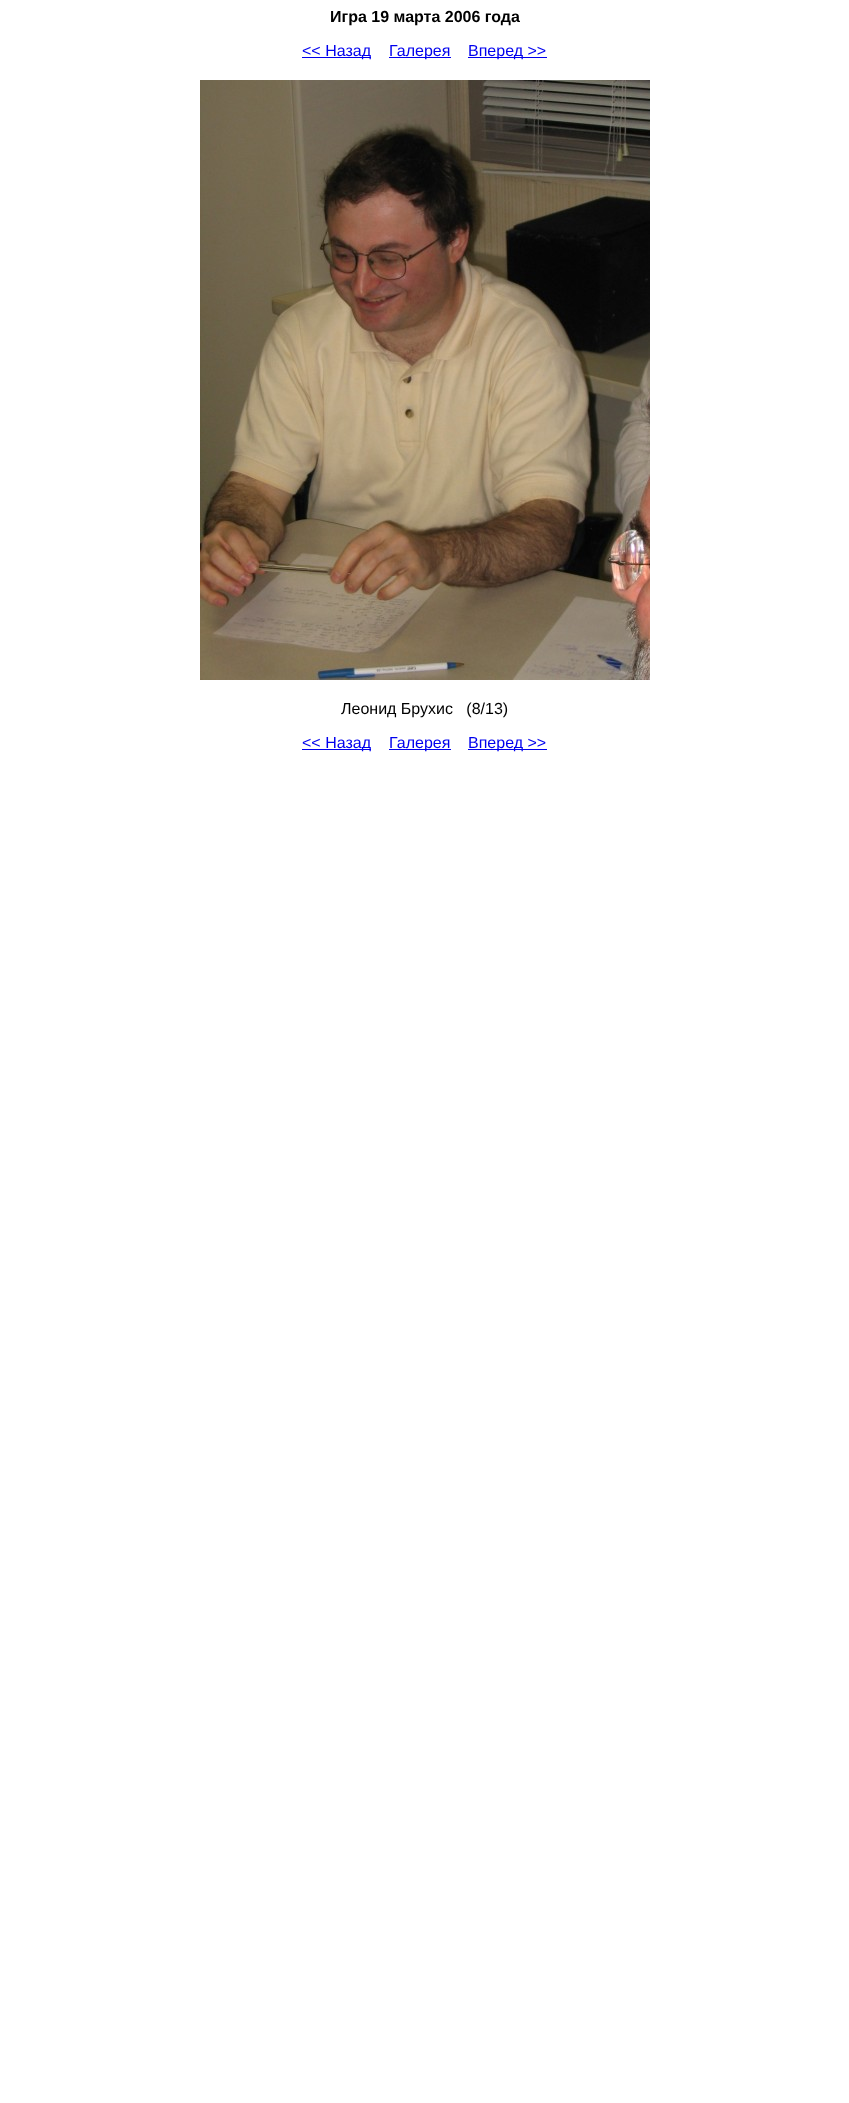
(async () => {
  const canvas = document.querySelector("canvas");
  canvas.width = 849;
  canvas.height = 2103;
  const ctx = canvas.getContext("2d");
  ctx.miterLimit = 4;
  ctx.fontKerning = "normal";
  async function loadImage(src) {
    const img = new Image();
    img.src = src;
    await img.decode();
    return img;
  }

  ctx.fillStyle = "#ffffff";
  ctx.fillRect(0, 0, 849, 2103);
  for (const [x, y, w, h, color] of [
    [302, 57, 69, 1, "#0000ee"],
    [389, 57, 62, 1, "#0000ee"],
    [468, 57, 79, 1, "#0000ee"],
  ]) {
    ctx.fillStyle = color;
    ctx.fillRect(x, y, w, h);
  }
  ctx.drawImage(await loadImage("img/1.png"), 200, 80, 450, 600);
  for (const [x, y, w, h, color] of [
    [302, 749, 69, 1, "#0000ee"],
    [389, 749, 62, 1, "#0000ee"],
    [468, 749, 79, 1, "#0000ee"],
  ]) {
    ctx.fillStyle = color;
    ctx.fillRect(x, y, w, h);
  }
  ctx.font = "bold 16px Liberation Sans";
  ctx.fillStyle = "#000000";
  ctx.fillText("Игра 19 марта 2006 года", 330, 22);
  ctx.font = "16px Liberation Sans";
  ctx.fillStyle = "#0000ee";
  for (const [text, x, y] of [
    ["<< Назад", 302, 56],
    ["Галерея", 389, 56],
    ["Вперед >>", 468, 56],
  ]) {
    ctx.fillText(text, x, y);
  }
  ctx.fillStyle = "#000000";
  ctx.fillText("Леонид Брухис   (8/13)", 341, 714);
  ctx.fillStyle = "#0000ee";
  for (const [text, x, y] of [
    ["<< Назад", 302, 748],
    ["Галерея", 389, 748],
    ["Вперед >>", 468, 748],
  ]) {
    ctx.fillText(text, x, y);
  }
})();
